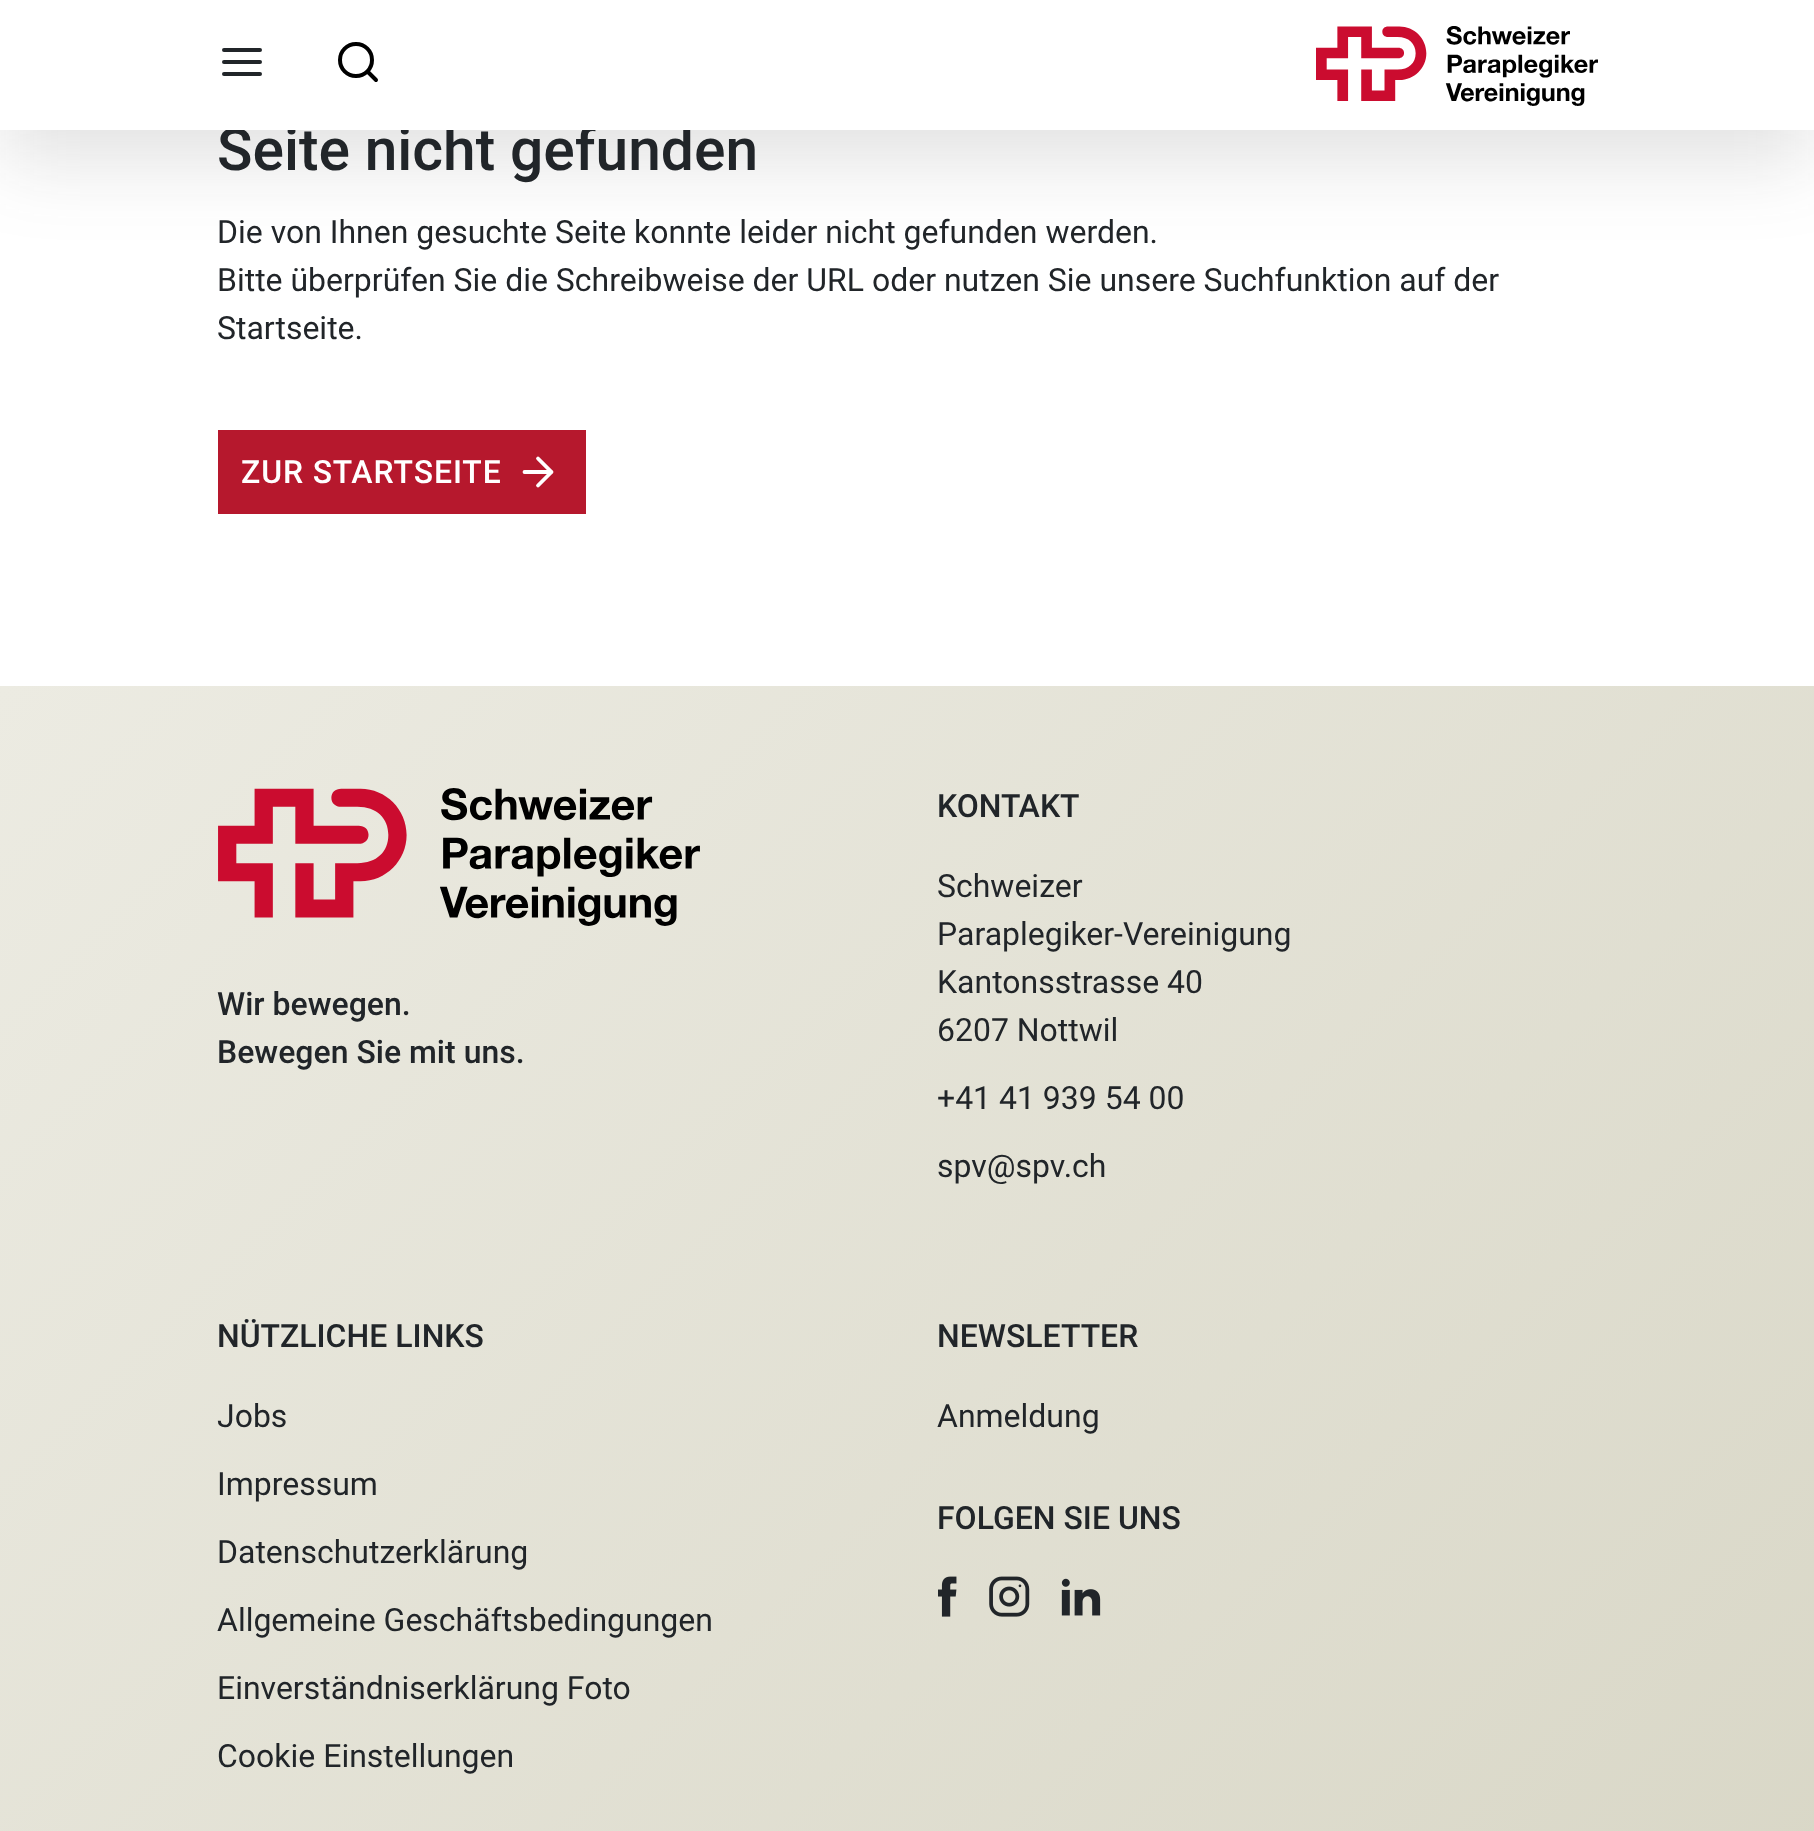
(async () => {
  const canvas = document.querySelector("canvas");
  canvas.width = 1814;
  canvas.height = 1831;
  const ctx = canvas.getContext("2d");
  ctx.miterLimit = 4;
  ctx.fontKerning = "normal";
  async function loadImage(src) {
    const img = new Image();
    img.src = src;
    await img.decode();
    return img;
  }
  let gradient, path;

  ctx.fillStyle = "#ffffff";
  ctx.fillRect(0, 0, 1814, 1831);
  ctx.fillStyle = "rgba(51, 51, 51, 0.15)";
  ctx.filter = "blur(40px)";
  ctx.beginPath();
  ctx.rect(0, 30, 1814, 130);
  ctx.fill();
  ctx.filter = "none";
  ctx.fillStyle = "#b6182d";
  ctx.fillRect(218, 430, 368, 84);
  path = new Path2D("M524.5 472H551.5M538 458.5L551.5 472L538 485.5");
  ctx.strokeStyle = "#ffffff";
  ctx.lineWidth = 3.8;
  ctx.lineCap = "round";
  ctx.lineJoin = "round";
  ctx.stroke(path);
  gradient = ctx.createLinearGradient(-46, 732, 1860, 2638);
  gradient.addColorStop(0, "#ecebe2");
  gradient.addColorStop(1, "#d4d2c0");
  ctx.fillStyle = gradient;
  ctx.fillRect(0, 686, 1814, 1145);
  ctx.drawImage(await loadImage("img/2.png"), 218, 788, 482, 138);
  ctx.drawImage(await loadImage("img/3.png"), 938, 1576, 19, 41);
  ctx.drawImage(await loadImage("img/4.png"), 989, 1576, 41, 41);
  ctx.drawImage(await loadImage("img/5.png"), 1061, 1578, 40, 38);
  ctx.font = "500 58.75px Roboto";
  ctx.fillStyle = "#212529";
  ctx.fillText("Seite nicht gefunden", 217, 170);
  ctx.fillStyle = "#ffffff";
  ctx.fillRect(0, 0, 1814, 130);
  ctx.drawImage(await loadImage("img/1.png"), 1316, 26, 282, 80);
  path = new Path2D("M224 62H260M224 50H260M224 74H260");
  ctx.strokeStyle = "#212529";
  ctx.lineWidth = 4;
  ctx.stroke(path);
  path = new Path2D("M356 76C365 76 372 69 372 60C372 51 365 44 356 44C347 44 340 51 340 60C340 69 347 76 356 76ZM376 80L367.5 71.5");
  ctx.strokeStyle = "#000000";
  ctx.stroke(path);
  ctx.font = "32px Roboto";
  ctx.fillStyle = "#212529";
  for (const [text, x, y] of [
    ["Die von Ihnen gesuchte Seite konnte leider nicht gefunden werden.", 217, 243],
    ["Bitte überprüfen Sie die Schreibweise der URL oder nutzen Sie unsere Suchfunktion auf der", 217, 291],
    ["Startseite.", 217, 339],
  ]) {
    ctx.fillText(text, x, y);
  }
  ctx.letterSpacing = "0.9px";
  ctx.font = "500 32px Roboto";
  ctx.fillStyle = "#ffffff";
  ctx.fillText("ZUR STARTSEITE", 241, 483);
  ctx.letterSpacing = "0px";
  ctx.fillStyle = "#212529";
  for (const [text, x, y] of [
    ["Wir bewegen.", 217, 1015],
    ["Bewegen Sie mit uns.", 217, 1063],
    ["KONTAKT", 937, 817],
  ]) {
    ctx.fillText(text, x, y);
  }
  ctx.font = "32px Roboto";
  for (const [text, x, y] of [
    ["Schweizer", 937, 897],
    ["Paraplegiker-Vereinigung", 937, 945],
    ["Kantonsstrasse 40", 937, 993],
    ["6207 Nottwil", 937, 1041],
    ["+41 41 939 54 00", 937, 1109],
    ["spv@spv.ch", 937, 1177],
  ]) {
    ctx.fillText(text, x, y);
  }
  ctx.font = "500 32px Roboto";
  ctx.fillText("NÜTZLICHE LINKS", 217, 1347);
  ctx.font = "32px Roboto";
  for (const [text, x, y] of [
    ["Jobs", 217, 1427],
    ["Impressum", 217, 1495],
    ["Datenschutzerklärung", 217, 1563],
    ["Allgemeine Geschäftsbedingungen", 217, 1631],
    ["Einverständniserklärung Foto", 217, 1699],
    ["Cookie Einstellungen", 217, 1767],
  ]) {
    ctx.fillText(text, x, y);
  }
  ctx.font = "500 32px Roboto";
  ctx.fillText("NEWSLETTER", 937, 1347);
  ctx.font = "32px Roboto";
  ctx.fillText("Anmeldung", 937, 1427);
  ctx.font = "500 32px Roboto";
  ctx.fillText("FOLGEN SIE UNS", 937, 1529);
})();
